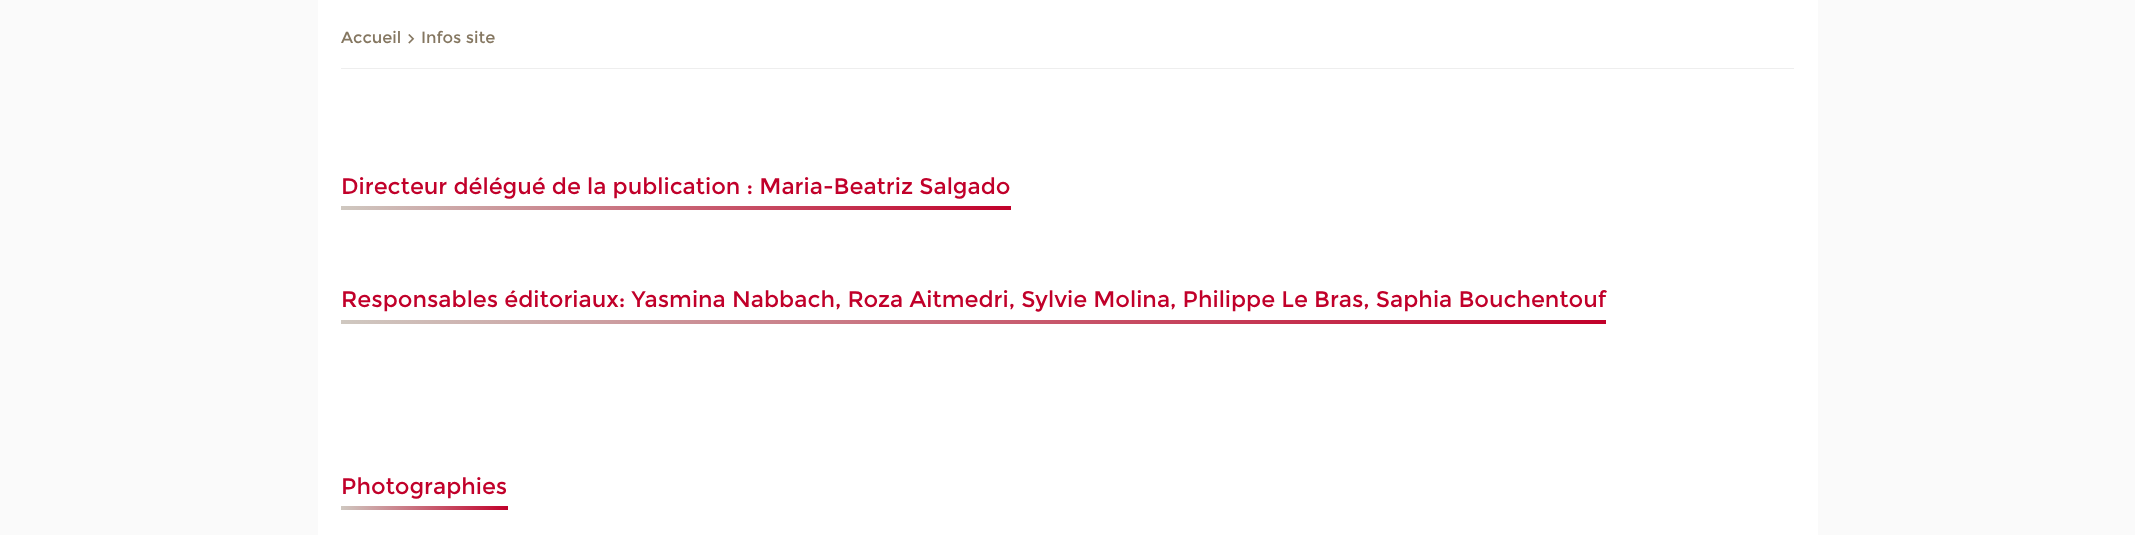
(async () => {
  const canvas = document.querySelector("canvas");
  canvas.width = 2135;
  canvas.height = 535;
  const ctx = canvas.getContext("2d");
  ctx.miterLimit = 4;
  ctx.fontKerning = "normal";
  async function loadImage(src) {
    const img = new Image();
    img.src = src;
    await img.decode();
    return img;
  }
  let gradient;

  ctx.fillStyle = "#fafafa";
  ctx.fillRect(0, 0, 2135, 535);
  ctx.fillStyle = "#ffffff";
  ctx.fillRect(318, 0, 1500, 535);
  ctx.fillStyle = "#eeeeee";
  ctx.fillRect(341, 68, 1453, 1);
  ctx.drawImage(await loadImage("img/1.png"), 408, 34, 7, 10);
  gradient = ctx.createLinearGradient(341, 208, 1011, 208);
  gradient.addColorStop(0, "#cfc8c0");
  gradient.addColorStop(1, "#c1002a");
  ctx.fillStyle = gradient;
  ctx.fillRect(341, 206, 670, 4);
  gradient = ctx.createLinearGradient(341, 322, 1606, 322);
  gradient.addColorStop(0, "#cfc8c0");
  gradient.addColorStop(1, "#c1002a");
  ctx.fillStyle = gradient;
  ctx.fillRect(341, 320, 1265, 4);
  gradient = ctx.createLinearGradient(341, 508, 508, 508);
  gradient.addColorStop(0, "#cfc8c0");
  gradient.addColorStop(1, "#c1002a");
  ctx.fillStyle = gradient;
  ctx.fillRect(341, 506, 167, 4);
  ctx.font = "16.25px Montserrat";
  ctx.fillStyle = "#857761";
  ctx.fillText("Accueil", 341, 43);
  ctx.fillText("Infos site", 421, 43);
  ctx.font = "22.5px Montserrat";
  ctx.fillStyle = "#c1002a";
  for (const [text, x, y] of [
    ["Directeur délégué de la publication : Maria-Beatriz Salgado", 341, 194],
    ["Responsables éditoriaux: Yasmina Nabbach, Roza Aitmedri, Sylvie Molina, Philippe Le Bras, Saphia Bouchentouf", 341, 307],
    ["Photographies", 341, 494],
  ]) {
    ctx.fillText(text, x, y);
  }
})();
